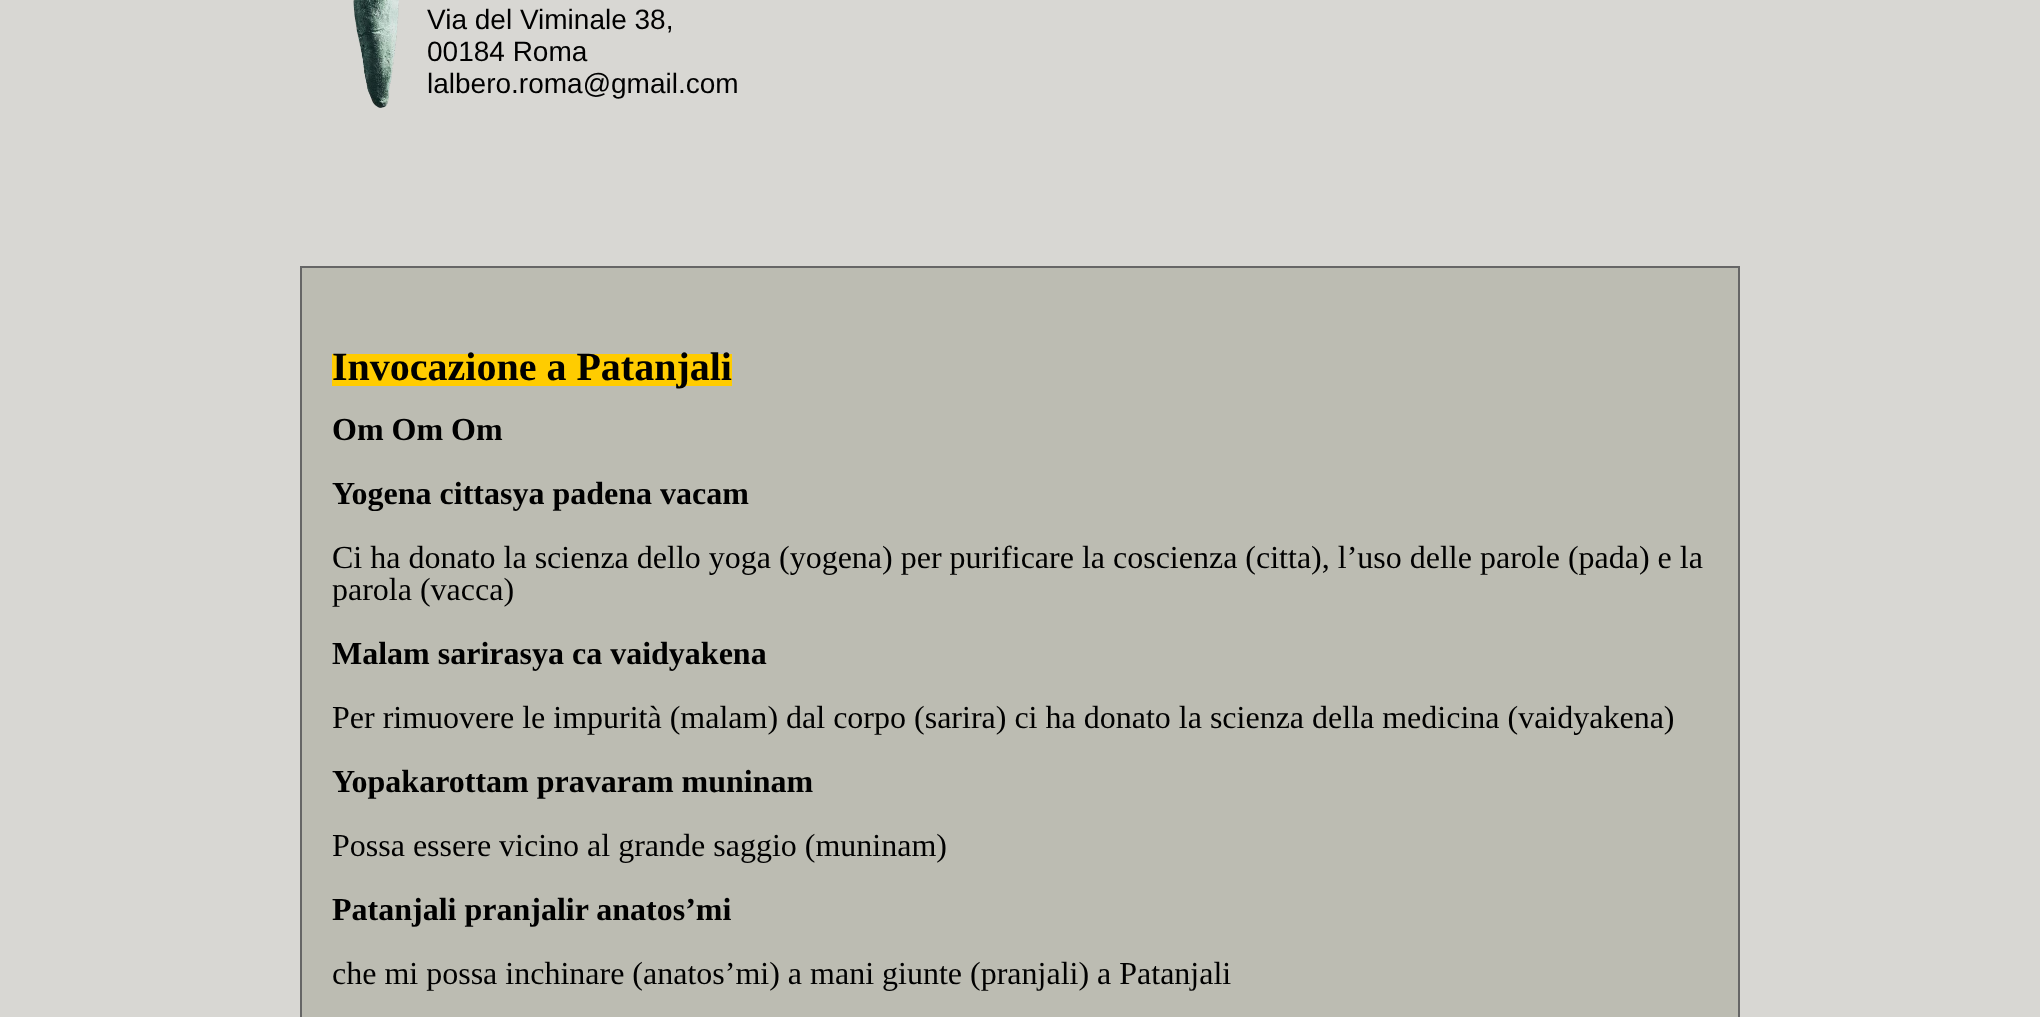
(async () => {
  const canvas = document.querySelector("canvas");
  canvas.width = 2040;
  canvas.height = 1017;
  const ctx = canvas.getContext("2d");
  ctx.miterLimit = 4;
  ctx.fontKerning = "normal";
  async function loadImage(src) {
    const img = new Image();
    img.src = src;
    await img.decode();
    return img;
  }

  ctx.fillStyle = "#d8d7d3";
  ctx.fillRect(0, 0, 2040, 1017);
  ctx.drawImage(await loadImage("img/1.png"), 353, 0, 46, 108);
  ctx.fillStyle = "#bcbcb2";
  ctx.beginPath();
  ctx.rect(301, 267, 1438, 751);
  ctx.fill();
  ctx.strokeStyle = "#666666";
  ctx.lineWidth = 2;
  ctx.stroke();
  ctx.fillStyle = "#ffcc00";
  ctx.fillRect(332, 354, 400, 32);
  ctx.font = "28px Liberation Sans";
  ctx.fillStyle = "#000000";
  for (const [text, x, y] of [
    ["Via del Viminale 38,", 427, 29],
    ["00184 Roma", 427, 61],
    ["lalbero.roma@gmail.com", 427, 93],
  ]) {
    ctx.fillText(text, x, y);
  }
  ctx.font = "bold 40px Liberation Serif";
  ctx.fillText("Invocazione a Patanjali", 332, 380);
  ctx.font = "bold 32px Liberation Serif";
  ctx.fillText("Om Om Om", 332, 440);
  ctx.fillText("Yogena cittasya padena vacam", 332, 504);
  ctx.font = "32px Liberation Serif";
  ctx.fillText("Ci ha donato la scienza dello yoga (yogena) per purificare la coscienza (citta), l’uso delle parole (pada) e la", 332, 568);
  ctx.fillText("parola (vacca)", 332, 600);
  ctx.font = "bold 32px Liberation Serif";
  ctx.fillText("Malam sarirasya ca vaidyakena", 332, 664);
  ctx.font = "32px Liberation Serif";
  ctx.fillText("Per rimuovere le impurità (malam) dal corpo (sarira) ci ha donato la scienza della medicina (vaidyakena)", 332, 728);
  ctx.font = "bold 32px Liberation Serif";
  ctx.fillText("Yopakarottam pravaram muninam", 332, 792);
  ctx.font = "32px Liberation Serif";
  ctx.fillText("Possa essere vicino al grande saggio (muninam)", 332, 856);
  ctx.font = "bold 32px Liberation Serif";
  ctx.fillText("Patanjali pranjalir anatos’mi", 332, 920);
  ctx.font = "32px Liberation Serif";
  ctx.fillText("che mi possa inchinare (anatos’mi) a mani giunte (pranjali) a Patanjali", 332, 984);
})();
